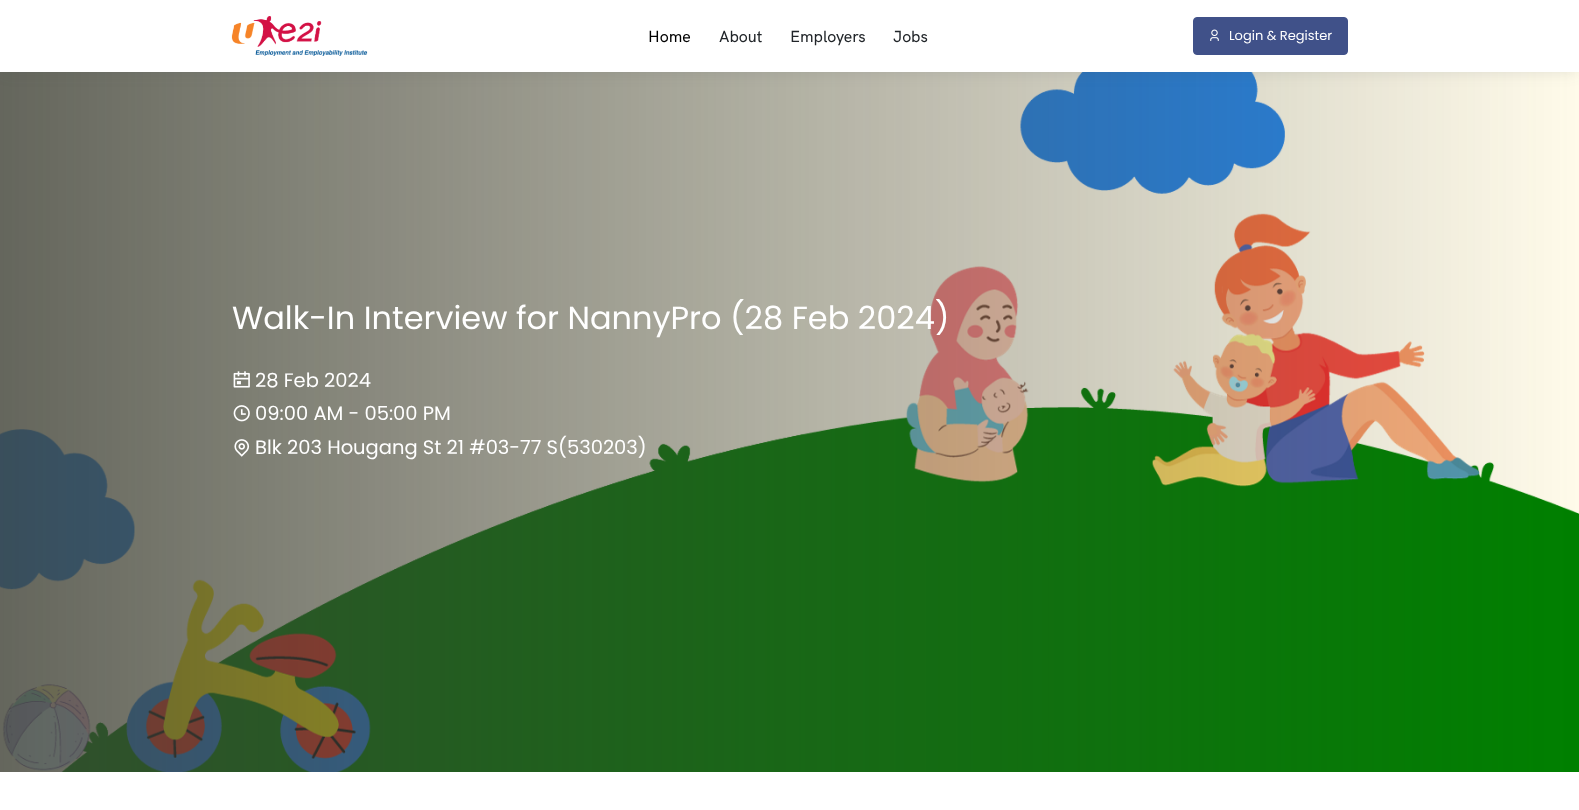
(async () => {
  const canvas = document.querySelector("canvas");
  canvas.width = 1579;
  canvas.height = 810;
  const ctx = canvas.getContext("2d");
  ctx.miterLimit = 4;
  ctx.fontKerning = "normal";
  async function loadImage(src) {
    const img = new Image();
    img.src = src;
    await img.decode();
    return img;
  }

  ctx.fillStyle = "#ffffff";
  ctx.fillRect(0, 0, 1579, 810);
  ctx.drawImage(await loadImage("img/3.png"), 0, 72, 1579, 700);
  ctx.fillStyle = "rgba(56, 65, 74, 0.15)";
  ctx.filter = "blur(8px)";
  ctx.beginPath();
  ctx.rect(2, 3, 1575, 68);
  ctx.fill();
  ctx.filter = "none";
  ctx.fillStyle = "#ffffff";
  ctx.fillRect(0, 0, 1579, 72);
  ctx.drawImage(await loadImage("img/1.png"), 231, 16, 137, 40);
  ctx.fillStyle = "#405189";
  ctx.beginPath();
  ctx.roundRect(1193.5, 17.5, 154, 37, 3.5);
  ctx.fill();
  ctx.strokeStyle = "#405189";
  ctx.stroke();
  ctx.drawImage(await loadImage("img/2.png"), 1210, 29, 9, 12);
  ctx.drawImage(await loadImage("img/4.png"), 233, 371, 17, 17);
  ctx.drawImage(await loadImage("img/5.png"), 233, 405, 17, 17);
  ctx.drawImage(await loadImage("img/6.png"), 234, 439, 16, 18);
  ctx.font = "500 16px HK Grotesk";
  ctx.fillStyle = "#000000";
  ctx.fillText("Home", 648, 42);
  ctx.fillStyle = "#212529";
  for (const [text, x, y] of [
    ["About", 719, 42],
    ["Employers", 790, 42],
    ["Jobs", 893, 42],
  ]) {
    ctx.fillText(text, x, y);
  }
  ctx.font = "13px Poppins";
  ctx.fillStyle = "#ffffff";
  ctx.fillText("Login & Register", 1229, 40);
  ctx.font = "32px Poppins";
  ctx.fillText("Walk-In Interview for NannyPro (28 Feb 2024)", 232, 329);
  ctx.font = "19.5px Poppins";
  for (const [text, x, y] of [
    ["28 Feb 2024", 255, 387],
    ["09:00 AM - 05:00 PM", 255, 420],
    ["Blk 203 Hougang St 21 #03-77 S(530203)", 255, 454],
  ]) {
    ctx.fillText(text, x, y);
  }
})();
